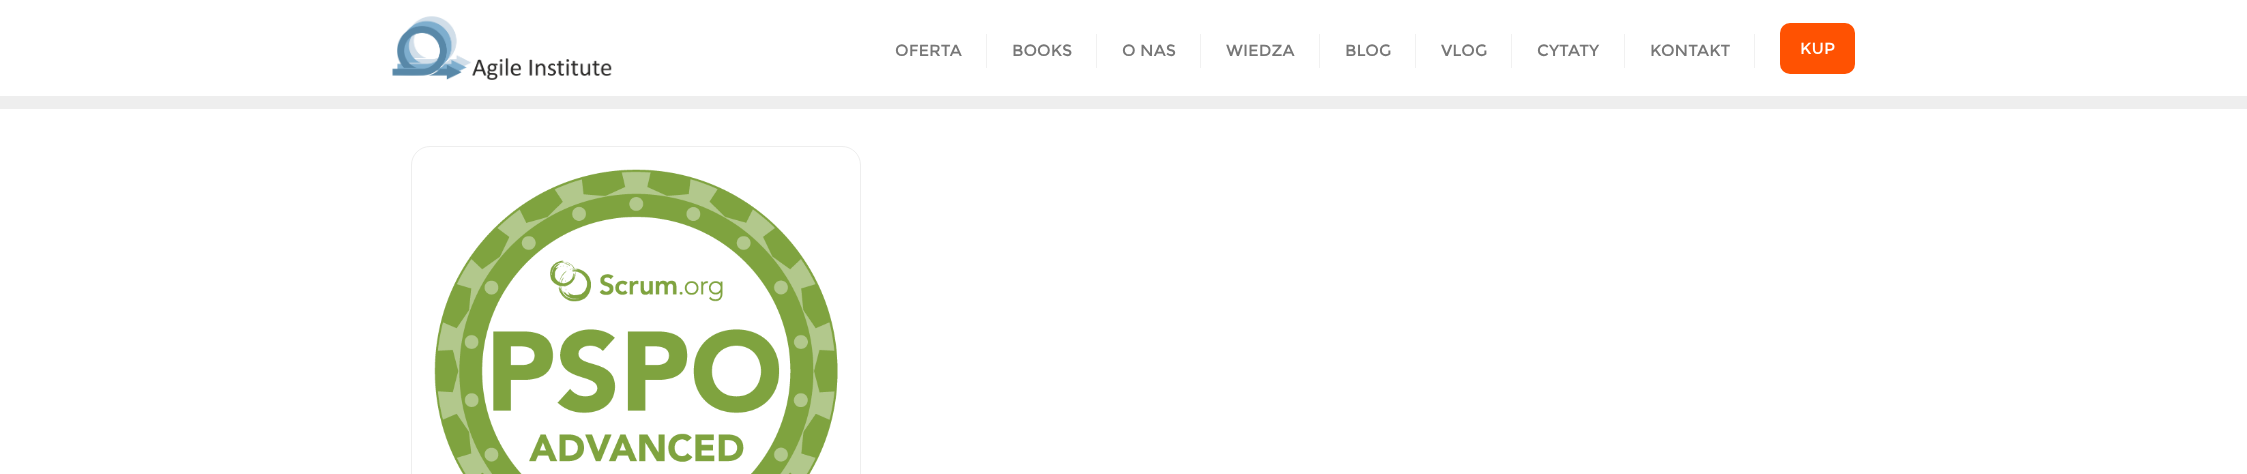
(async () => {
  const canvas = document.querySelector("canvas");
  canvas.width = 2247;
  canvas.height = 474;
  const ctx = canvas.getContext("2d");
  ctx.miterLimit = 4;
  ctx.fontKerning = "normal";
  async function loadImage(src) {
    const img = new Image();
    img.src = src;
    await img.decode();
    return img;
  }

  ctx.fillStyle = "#ffffff";
  ctx.fillRect(0, 0, 2247, 474);
  ctx.fillStyle = "#eeeeee";
  ctx.fillRect(0, 96, 2247, 13);
  ctx.drawImage(await loadImage("img/1.png"), 392, 16, 220, 64);
  for (const [x, y, w, h, color] of [
    [986, 34, 1, 34, "#f1f1f1"],
    [1096, 34, 1, 34, "#f1f1f1"],
    [1200, 34, 1, 34, "#f1f1f1"],
    [1319, 34, 1, 34, "#f1f1f1"],
    [1415, 34, 1, 34, "#f1f1f1"],
    [1511, 34, 1, 34, "#f1f1f1"],
    [1624, 34, 1, 34, "#f1f1f1"],
    [1754, 34, 1, 34, "#f1f1f1"],
  ]) {
    ctx.fillStyle = color;
    ctx.fillRect(x, y, w, h);
  }
  ctx.fillStyle = "#ff5202";
  ctx.beginPath();
  ctx.roundRect(1780, 23, 75, 51, 10);
  ctx.fill();
  ctx.beginPath();
  ctx.roundRect(411.5, 146.5, 449, 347, 18.5);
  ctx.strokeStyle = "#eeeeee";
  ctx.stroke();
  ctx.drawImage(await loadImage("img/2.png"), 434, 169, 404, 305);
  ctx.font = "16.25px Montserrat";
  ctx.fillStyle = "#777777";
  for (const [text, x, y] of [
    ["OFERTA", 895, 56],
    ["BOOKS", 1012, 56],
    ["O NAS", 1122, 56],
    ["WIEDZA", 1226, 56],
    ["BLOG", 1345, 56],
    ["VLOG", 1441, 56],
    ["CYTATY", 1537, 56],
    ["KONTAKT", 1650, 56],
  ]) {
    ctx.fillText(text, x, y);
  }
  ctx.fillStyle = "#ffffff";
  ctx.fillText("KUP", 1800, 54);
})();
